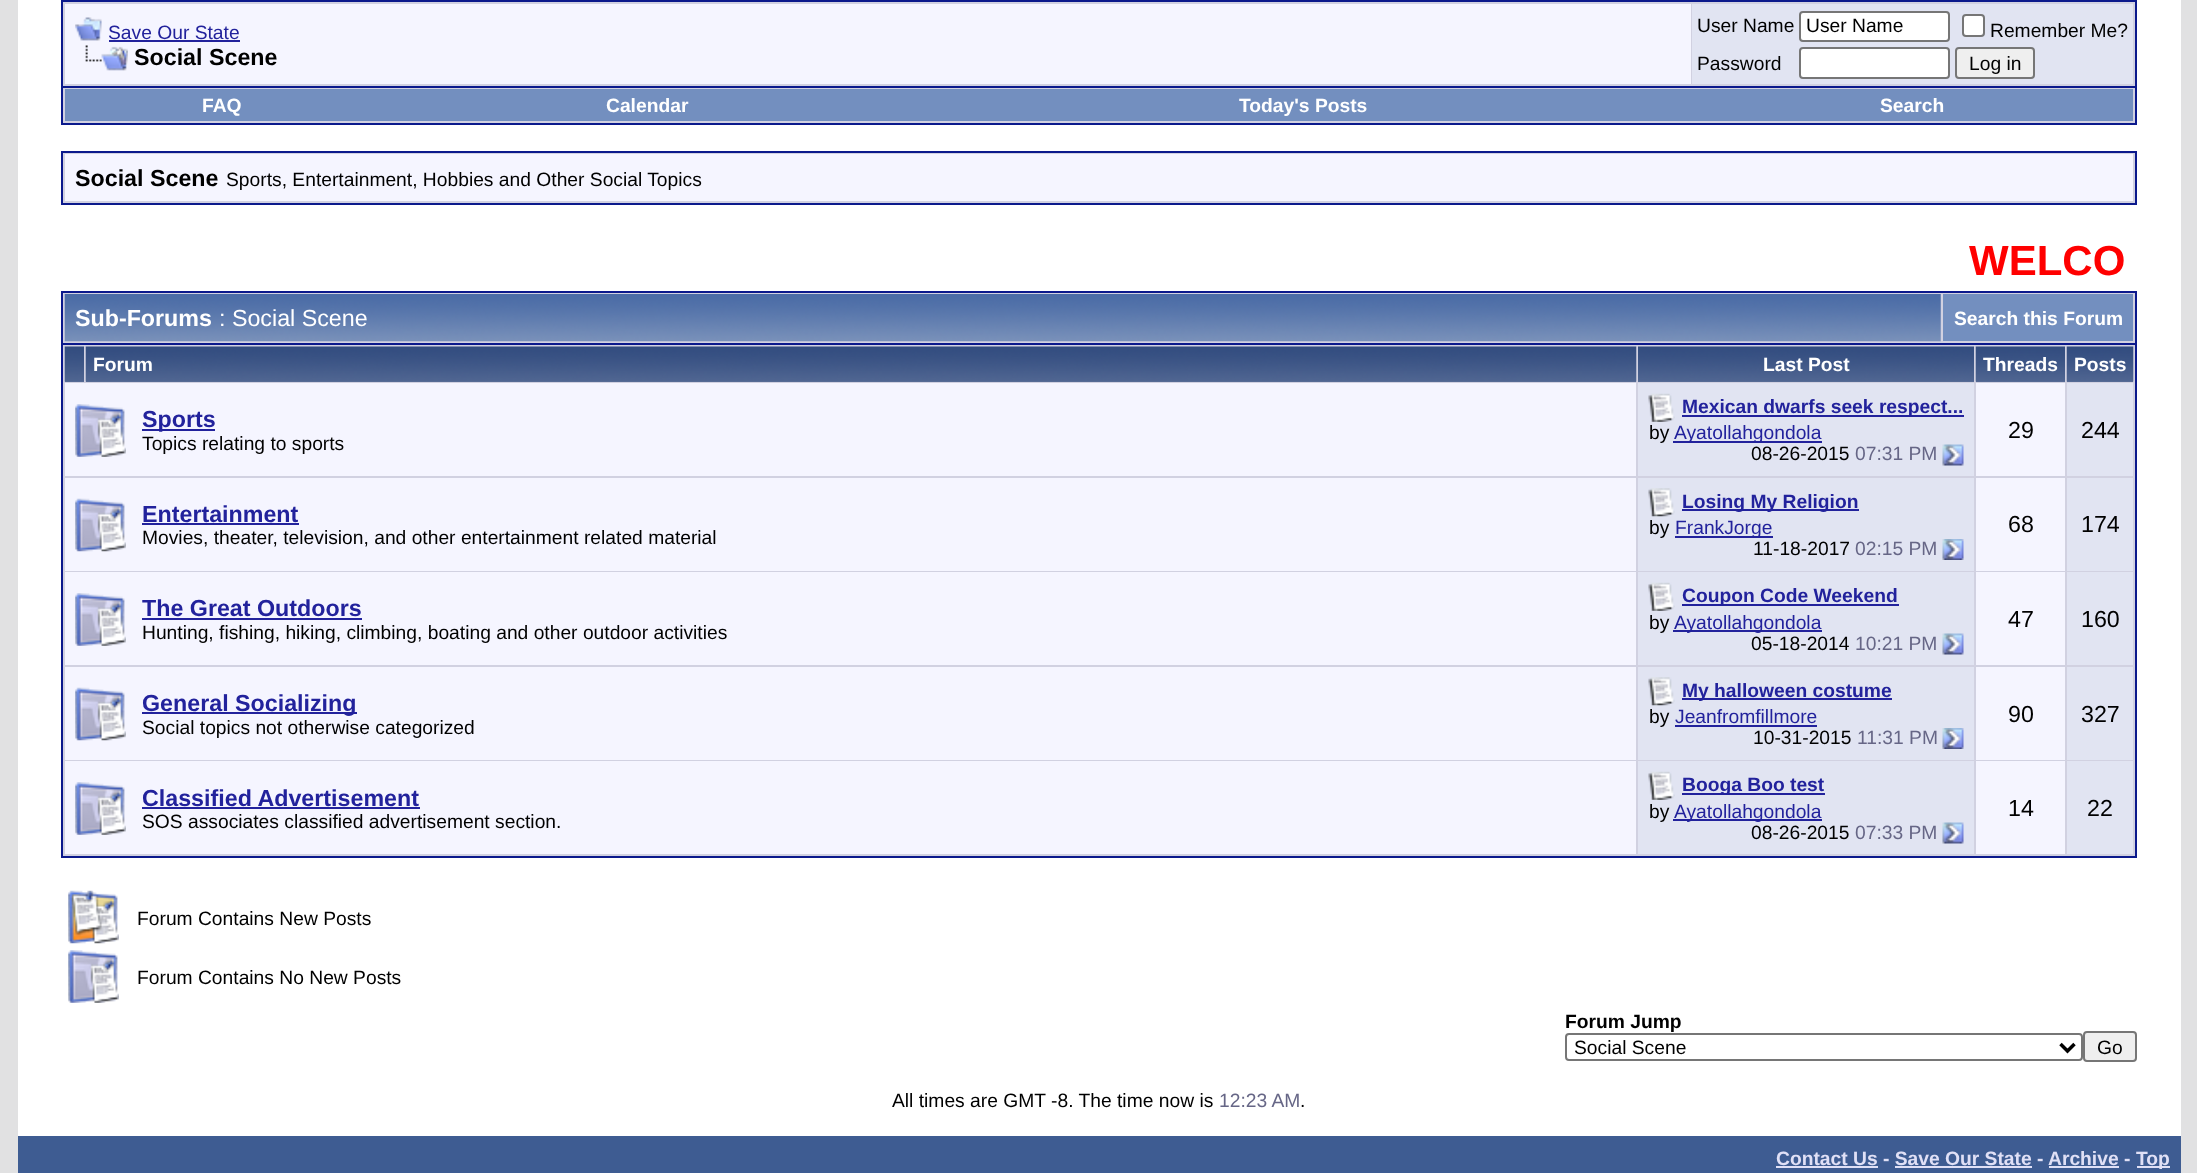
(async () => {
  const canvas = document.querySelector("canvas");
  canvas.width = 2197;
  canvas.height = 1173;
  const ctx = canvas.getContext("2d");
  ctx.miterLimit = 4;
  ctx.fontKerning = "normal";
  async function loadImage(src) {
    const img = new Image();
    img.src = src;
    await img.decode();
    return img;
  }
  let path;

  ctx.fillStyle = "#e1e1e2";
  ctx.fillRect(0, 0, 2197, 1173);
  ctx.fillStyle = "#ffffff";
  ctx.fillRect(18, 0, 2163, 1136);
  ctx.fillStyle = "#d1d1e1";
  ctx.beginPath();
  ctx.rect(62, 1, 2074, 86);
  ctx.fill();
  ctx.strokeStyle = "#0b198c";
  ctx.lineWidth = 2;
  ctx.stroke();
  ctx.fillStyle = "#f5f5ff";
  ctx.fillRect(65, 4, 1626, 80);
  ctx.drawImage(await loadImage("img/1.png"), 75, 17, 27, 24);
  ctx.fillStyle = "#22229c";
  ctx.fillRect(109, 40, 131, 2);
  ctx.drawImage(await loadImage("img/2.png"), 85, 45, 43, 26);
  ctx.fillStyle = "#e1e4f2";
  ctx.fillRect(1692, 4, 441, 80);
  ctx.fillStyle = "#ffffff";
  ctx.beginPath();
  ctx.roundRect(1800, 12, 149, 29, 3);
  ctx.fill();
  ctx.strokeStyle = "#767676";
  ctx.stroke();
  ctx.beginPath();
  ctx.roundRect(1963, 15, 21, 21, 3);
  ctx.fill();
  ctx.stroke();
  ctx.beginPath();
  ctx.roundRect(1800, 48, 149, 30, 3);
  ctx.fill();
  ctx.stroke();
  ctx.fillStyle = "#efefef";
  ctx.beginPath();
  ctx.roundRect(1956, 48, 78, 30, 3);
  ctx.fill();
  ctx.stroke();
  for (const [x, y, w, h, color] of [
    [63, 88, 2072, 35, "#d1d1e1"],
    [2135, 88, 2, 36, "#0b198c"],
    [61, 123, 2076, 2, "#0b198c"],
    [61, 88, 2, 36, "#0b198c"],
    [65, 89, 2068, 32, "#738fbf"],
  ]) {
    ctx.fillStyle = color;
    ctx.fillRect(x, y, w, h);
  }
  ctx.fillStyle = "#d1d1e1";
  ctx.beginPath();
  ctx.rect(62, 152, 2074, 52);
  ctx.fill();
  ctx.strokeStyle = "#0b198c";
  ctx.stroke();
  for (const [x, y, w, h, color] of [
    [65, 154, 2068, 47, "#f5f5ff"],
    [63, 293, 2072, 50, "#d1d1e1"],
    [61, 291, 2076, 2, "#0b198c"],
    [2135, 291, 2, 52, "#0b198c"],
    [61, 291, 2, 52, "#0b198c"],
  ]) {
    ctx.fillStyle = color;
    ctx.fillRect(x, y, w, h);
  }
  ctx.drawImage(await loadImage("img/3.png"), 64, 294, 1877, 48);
  ctx.fillStyle = "#738fbf";
  ctx.fillRect(1943, 294, 190, 47);
  ctx.fillStyle = "#d1d1e1";
  ctx.beginPath();
  ctx.rect(62, 344, 2074, 513);
  ctx.fill();
  ctx.stroke();
  ctx.fillStyle = "#5c7099";
  ctx.fillRect(65, 381, 19, 1);
  ctx.drawImage(await loadImage("img/4.png"), 64, 346, 20, 36);
  ctx.fillRect(86, 381, 1550, 1);
  ctx.drawImage(await loadImage("img/5.png"), 85, 346, 1552, 36);
  ctx.fillRect(1638, 381, 336, 1);
  ctx.drawImage(await loadImage("img/6.png"), 1638, 346, 336, 36);
  ctx.fillRect(1976, 381, 89, 1);
  ctx.drawImage(await loadImage("img/7.png"), 1975, 346, 90, 36);
  ctx.fillRect(2067, 381, 66, 1);
  ctx.drawImage(await loadImage("img/8.png"), 2066, 346, 68, 36);
  ctx.fillStyle = "#f5f5ff";
  ctx.fillRect(65, 383, 1571, 93);
  ctx.drawImage(await loadImage("img/9.png"), 75, 404, 51, 53);
  ctx.fillStyle = "#22229c";
  ctx.fillRect(142, 429, 73, 2);
  ctx.fillStyle = "#e1e4f2";
  ctx.fillRect(1638, 383, 336, 93);
  ctx.drawImage(await loadImage("img/10.png"), 1648, 393, 27, 29);
  ctx.fillStyle = "#22229c";
  ctx.fillRect(1682, 415, 282, 2);
  ctx.fillRect(1673, 441, 149, 2);
  ctx.drawImage(await loadImage("img/11.png"), 1942, 444, 22, 22);
  for (const [x, y, w, h, color] of [
    [1976, 383, 89, 93, "#f5f5ff"],
    [2067, 383, 66, 93, "#e1e4f2"],
    [65, 478, 1571, 93, "#f5f5ff"],
  ]) {
    ctx.fillStyle = color;
    ctx.fillRect(x, y, w, h);
  }
  ctx.drawImage(await loadImage("img/12.png"), 75, 498, 51, 54);
  ctx.fillStyle = "#22229c";
  ctx.fillRect(142, 523, 157, 2);
  ctx.fillStyle = "#e1e4f2";
  ctx.fillRect(1638, 478, 336, 93);
  ctx.drawImage(await loadImage("img/13.png"), 1648, 488, 27, 29);
  ctx.fillStyle = "#22229c";
  ctx.fillRect(1682, 509, 177, 2);
  ctx.fillRect(1675, 536, 98, 2);
  ctx.drawImage(await loadImage("img/14.png"), 1942, 539, 22, 21);
  for (const [x, y, w, h, color] of [
    [1976, 478, 89, 93, "#f5f5ff"],
    [2067, 478, 66, 93, "#e1e4f2"],
    [65, 572, 1571, 93, "#f5f5ff"],
  ]) {
    ctx.fillStyle = color;
    ctx.fillRect(x, y, w, h);
  }
  ctx.drawImage(await loadImage("img/9.png"), 75, 593, 51, 53);
  ctx.fillStyle = "#22229c";
  ctx.fillRect(142, 618, 220, 2);
  ctx.fillStyle = "#e1e4f2";
  ctx.fillRect(1638, 572, 336, 93);
  ctx.drawImage(await loadImage("img/10.png"), 1648, 582, 27, 29);
  ctx.fillStyle = "#22229c";
  ctx.fillRect(1682, 604, 217, 2);
  ctx.fillRect(1673, 630, 149, 2);
  ctx.drawImage(await loadImage("img/11.png"), 1942, 633, 22, 22);
  for (const [x, y, w, h, color] of [
    [1976, 572, 89, 93, "#f5f5ff"],
    [2067, 572, 66, 93, "#e1e4f2"],
    [65, 667, 1571, 93, "#f5f5ff"],
  ]) {
    ctx.fillStyle = color;
    ctx.fillRect(x, y, w, h);
  }
  ctx.drawImage(await loadImage("img/12.png"), 75, 687, 51, 54);
  ctx.fillStyle = "#22229c";
  ctx.fillRect(142, 712, 215, 2);
  ctx.fillStyle = "#e1e4f2";
  ctx.fillRect(1638, 667, 336, 93);
  ctx.drawImage(await loadImage("img/13.png"), 1648, 677, 27, 29);
  ctx.fillStyle = "#22229c";
  ctx.fillRect(1682, 698, 210, 2);
  ctx.fillRect(1675, 725, 142, 2);
  ctx.drawImage(await loadImage("img/14.png"), 1942, 728, 22, 21);
  for (const [x, y, w, h, color] of [
    [1976, 667, 89, 93, "#f5f5ff"],
    [2067, 667, 66, 93, "#e1e4f2"],
    [65, 761, 1571, 93, "#f5f5ff"],
  ]) {
    ctx.fillStyle = color;
    ctx.fillRect(x, y, w, h);
  }
  ctx.drawImage(await loadImage("img/9.png"), 75, 782, 51, 53);
  ctx.fillStyle = "#22229c";
  ctx.fillRect(142, 807, 278, 2);
  ctx.fillStyle = "#e1e4f2";
  ctx.fillRect(1638, 761, 336, 93);
  ctx.drawImage(await loadImage("img/10.png"), 1648, 771, 27, 29);
  ctx.fillStyle = "#22229c";
  ctx.fillRect(1682, 793, 143, 2);
  ctx.fillRect(1673, 819, 149, 2);
  ctx.drawImage(await loadImage("img/11.png"), 1942, 822, 22, 22);
  ctx.fillStyle = "#f5f5ff";
  ctx.fillRect(1976, 761, 89, 93);
  ctx.fillStyle = "#e1e4f2";
  ctx.fillRect(2067, 761, 66, 93);
  ctx.drawImage(await loadImage("img/15.png"), 68, 890, 51, 54);
  ctx.drawImage(await loadImage("img/16.png"), 68, 950, 51, 53);
  ctx.beginPath();
  ctx.roundRect(1566, 1034, 516, 26, 3);
  ctx.strokeStyle = "#767676";
  ctx.stroke();
  path = new Path2D("M2060.5 1044L2067.5 1051L2074.5 1044");
  ctx.strokeStyle = "#000000";
  ctx.lineWidth = 3.5;
  ctx.stroke(path);
  ctx.fillStyle = "#efefef";
  ctx.beginPath();
  ctx.roundRect(2084, 1032, 52, 29, 3);
  ctx.fill();
  ctx.strokeStyle = "#767676";
  ctx.lineWidth = 2;
  ctx.stroke();
  for (const [x, y, w, h, color] of [
    [18, 1136, 2163, 37, "#3e5c92"],
    [1776, 1166, 102, 2, "#e0e0f6"],
    [1895, 1166, 137, 2, "#e0e0f6"],
    [2049, 1166, 70, 2, "#e0e0f6"],
    [2137, 1166, 33, 2, "#e0e0f6"],
  ]) {
    ctx.fillStyle = color;
    ctx.fillRect(x, y, w, h);
  }
  ctx.font = "19.25px Liberation Sans";
  ctx.fillStyle = "#22229c";
  ctx.fillText("Save Our State", 108, 39);
  ctx.font = "bold 23.25px Liberation Sans";
  ctx.fillStyle = "#000000";
  ctx.fillText("Social Scene", 134, 65);
  ctx.font = "19.25px Liberation Sans";
  for (const [text, x, y] of [
    ["User Name", 1697, 32],
    ["User Name", 1806, 32],
    ["Remember Me?", 1990, 37],
    ["Password", 1697, 70],
    ["Log in", 1969, 70],
  ]) {
    ctx.fillText(text, x, y);
  }
  ctx.font = "bold 19.25px Liberation Sans";
  ctx.fillStyle = "#ffffff";
  for (const [text, x, y] of [
    ["FAQ", 202, 112],
    ["Calendar", 606, 112],
    ["Today's Posts", 1239, 112],
    ["Search", 1880, 112],
  ]) {
    ctx.fillText(text, x, y);
  }
  ctx.font = "bold 23.25px Liberation Sans";
  ctx.fillStyle = "#000000";
  ctx.fillText("Social Scene", 75, 186);
  ctx.font = "19.25px Liberation Sans";
  ctx.fillText("Sports, Entertainment, Hobbies and Other Social Topics", 226, 186);
  ctx.font = "bold 42px Liberation Sans";
  ctx.fillStyle = "#ff0000";
  ctx.fillText("WELCO", 1969, 275);
  ctx.font = "bold 23.25px Liberation Sans";
  ctx.fillStyle = "#ffffff";
  ctx.fillText("Sub-Forums", 75, 326);
  ctx.font = "23.25px Liberation Sans";
  ctx.fillText(": Social Scene", 219, 326);
  ctx.font = "bold 19.25px Liberation Sans";
  for (const [text, x, y] of [
    ["Search this Forum", 1954, 325],
    ["Forum", 93, 371],
    ["Last Post", 1763, 371],
    ["Threads", 1983, 371],
    ["Posts", 2074, 371],
  ]) {
    ctx.fillText(text, x, y);
  }
  ctx.font = "bold 23.25px Liberation Sans";
  ctx.fillStyle = "#22229c";
  ctx.fillText("Sports", 142, 427);
  ctx.font = "19.25px Liberation Sans";
  ctx.fillStyle = "#000000";
  ctx.fillText("Topics relating to sports", 142, 450);
  ctx.font = "bold 19.25px Liberation Sans";
  ctx.fillStyle = "#22229c";
  ctx.fillText("Mexican dwarfs seek respect...", 1682, 413);
  ctx.font = "19.25px Liberation Sans";
  ctx.fillStyle = "#000000";
  ctx.fillText("by", 1649, 439);
  ctx.fillStyle = "#22229c";
  ctx.fillText("Ayatollahgondola", 1674, 439);
  ctx.fillStyle = "#000000";
  ctx.fillText("08-26-2015", 1751, 460);
  ctx.fillStyle = "#666686";
  ctx.fillText("07:31 PM", 1855, 460);
  ctx.font = "23.25px Liberation Sans";
  ctx.fillStyle = "#000000";
  ctx.fillText("29", 2008, 438);
  ctx.fillText("244", 2081, 438);
  ctx.font = "bold 23.25px Liberation Sans";
  ctx.fillStyle = "#22229c";
  ctx.fillText("Entertainment", 142, 522);
  ctx.font = "19.25px Liberation Sans";
  ctx.fillStyle = "#000000";
  ctx.fillText("Movies, theater, television, and other entertainment related material", 142, 544);
  ctx.font = "bold 19.25px Liberation Sans";
  ctx.fillStyle = "#22229c";
  ctx.fillText("Losing My Religion", 1682, 508);
  ctx.font = "19.25px Liberation Sans";
  ctx.fillStyle = "#000000";
  ctx.fillText("by", 1649, 534);
  ctx.fillStyle = "#22229c";
  ctx.fillText("FrankJorge", 1675, 534);
  ctx.fillStyle = "#000000";
  ctx.fillText("11-18-2017", 1753, 555);
  ctx.fillStyle = "#666686";
  ctx.fillText("02:15 PM", 1855, 555);
  ctx.font = "23.25px Liberation Sans";
  ctx.fillStyle = "#000000";
  ctx.fillText("68", 2008, 532);
  ctx.fillText("174", 2081, 532);
  ctx.font = "bold 23.25px Liberation Sans";
  ctx.fillStyle = "#22229c";
  ctx.fillText("The Great Outdoors", 142, 616);
  ctx.font = "19.25px Liberation Sans";
  ctx.fillStyle = "#000000";
  ctx.fillText("Hunting, fishing, hiking, climbing, boating and other outdoor activities", 142, 639);
  ctx.font = "bold 19.25px Liberation Sans";
  ctx.fillStyle = "#22229c";
  ctx.fillText("Coupon Code Weekend", 1682, 602);
  ctx.font = "19.25px Liberation Sans";
  ctx.fillStyle = "#000000";
  ctx.fillText("by", 1649, 629);
  ctx.fillStyle = "#22229c";
  ctx.fillText("Ayatollahgondola", 1674, 629);
  ctx.fillStyle = "#000000";
  ctx.fillText("05-18-2014", 1751, 650);
  ctx.fillStyle = "#666686";
  ctx.fillText("10:21 PM", 1855, 650);
  ctx.font = "23.25px Liberation Sans";
  ctx.fillStyle = "#000000";
  ctx.fillText("47", 2008, 627);
  ctx.fillText("160", 2081, 627);
  ctx.font = "bold 23.25px Liberation Sans";
  ctx.fillStyle = "#22229c";
  ctx.fillText("General Socializing", 142, 711);
  ctx.font = "19.25px Liberation Sans";
  ctx.fillStyle = "#000000";
  ctx.fillText("Social topics not otherwise categorized", 142, 734);
  ctx.font = "bold 19.25px Liberation Sans";
  ctx.fillStyle = "#22229c";
  ctx.fillText("My halloween costume", 1682, 697);
  ctx.font = "19.25px Liberation Sans";
  ctx.fillStyle = "#000000";
  ctx.fillText("by", 1649, 723);
  ctx.fillStyle = "#22229c";
  ctx.fillText("Jeanfromfillmore", 1675, 723);
  ctx.fillStyle = "#000000";
  ctx.fillText("10-31-2015", 1753, 744);
  ctx.fillStyle = "#666686";
  ctx.fillText("11:31 PM", 1857, 744);
  ctx.font = "23.25px Liberation Sans";
  ctx.fillStyle = "#000000";
  ctx.fillText("90", 2008, 722);
  ctx.fillText("327", 2081, 722);
  ctx.font = "bold 23.25px Liberation Sans";
  ctx.fillStyle = "#22229c";
  ctx.fillText("Classified Advertisement", 142, 806);
  ctx.font = "19.25px Liberation Sans";
  ctx.fillStyle = "#000000";
  ctx.fillText("SOS associates classified advertisement section.", 142, 828);
  ctx.font = "bold 19.25px Liberation Sans";
  ctx.fillStyle = "#22229c";
  ctx.fillText("Booga Boo test", 1682, 791);
  ctx.font = "19.25px Liberation Sans";
  ctx.fillStyle = "#000000";
  ctx.fillText("by", 1649, 818);
  ctx.fillStyle = "#22229c";
  ctx.fillText("Ayatollahgondola", 1674, 818);
  ctx.fillStyle = "#000000";
  ctx.fillText("08-26-2015", 1751, 839);
  ctx.fillStyle = "#666686";
  ctx.fillText("07:33 PM", 1855, 839);
  ctx.font = "23.25px Liberation Sans";
  ctx.fillStyle = "#000000";
  ctx.fillText("14", 2008, 816);
  ctx.fillText("22", 2087, 816);
  ctx.font = "19.25px Liberation Sans";
  ctx.fillText("Forum Contains New Posts", 137, 925);
  ctx.fillText("Forum Contains No New Posts", 137, 984);
  ctx.font = "bold 19.25px Liberation Sans";
  ctx.fillText("Forum Jump", 1565, 1028);
  ctx.font = "19.25px Liberation Sans";
  for (const [text, x, y] of [
    ["Social Scene", 1574, 1054],
    ["Go", 2097, 1054],
    ["All times are GMT -8. The time now is", 892, 1107],
  ]) {
    ctx.fillText(text, x, y);
  }
  ctx.fillStyle = "#666686";
  ctx.fillText("12:23 AM", 1219, 1107);
  ctx.fillStyle = "#000000";
  ctx.fillText(".", 1300, 1107);
  ctx.font = "bold 19.25px Liberation Sans";
  ctx.fillStyle = "#e0e0f6";
  for (const [text, x, y] of [
    ["Contact Us - Save Our State", 1776, 1165],
    ["-", 2037, 1165],
    ["Archive -", 2048, 1165],
    ["Top", 2136, 1165],
  ]) {
    ctx.fillText(text, x, y);
  }
})();
